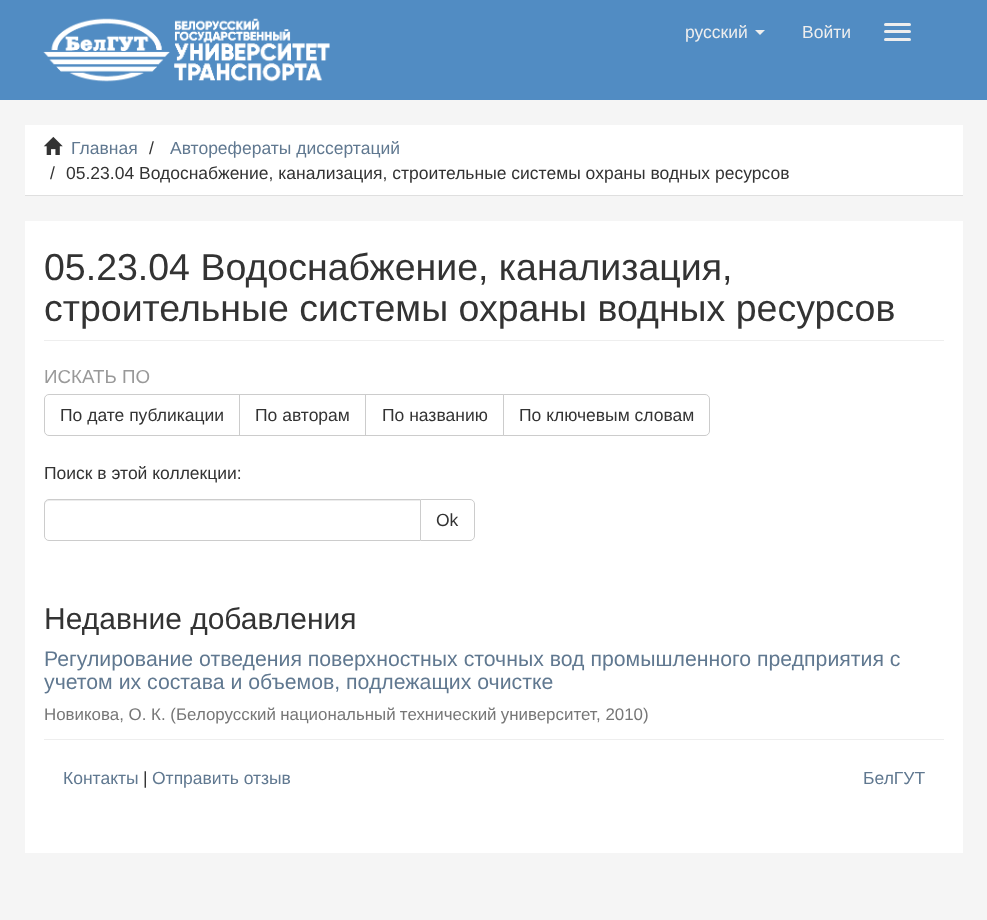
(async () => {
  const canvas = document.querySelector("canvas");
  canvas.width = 987;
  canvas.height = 920;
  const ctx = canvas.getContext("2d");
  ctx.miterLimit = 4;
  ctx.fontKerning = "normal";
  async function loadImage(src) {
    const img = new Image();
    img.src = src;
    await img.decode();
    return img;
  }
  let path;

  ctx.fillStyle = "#f5f5f5";
  ctx.fillRect(0, 0, 987, 920);
  ctx.fillStyle = "#518cc3";
  ctx.fillRect(0, 0, 987, 100);
  ctx.drawImage(await loadImage("img/1.png"), 43, 18, 287, 64);
  ctx.fillStyle = "#eeeeee";
  path = new Path2D("M755 30H765L760 35Z");
  ctx.fill(path);
  ctx.beginPath();
  ctx.roundRect(884, 23, 27, 3, 1.5);
  ctx.fill();
  ctx.beginPath();
  ctx.roundRect(884, 30, 27, 3, 1.5);
  ctx.fill();
  ctx.beginPath();
  ctx.roundRect(884, 38, 27, 3, 1.5);
  ctx.fill();
  ctx.fillStyle = "#ffffff";
  ctx.fillRect(25, 125, 938, 70);
  ctx.fillStyle = "#dfdfdf";
  ctx.fillRect(25, 195, 938, 1);
  ctx.drawImage(await loadImage("img/2.png"), 43, 136, 20, 19);
  ctx.fillStyle = "#ffffff";
  ctx.fillRect(25, 221, 938, 632);
  ctx.fillStyle = "#eeeeee";
  ctx.fillRect(44, 340, 900, 1);
  ctx.beginPath();
  ctx.roundRect(44.5, 394.5, 195, 41, [4.5, 0, 0, 4.5]);
  ctx.strokeStyle = "#cccccc";
  ctx.stroke();
  ctx.strokeRect(239.5, 394.5, 126, 41);
  ctx.strokeRect(365.5, 394.5, 138, 41);
  ctx.fillStyle = "#ffffff";
  ctx.beginPath();
  ctx.roundRect(503.5, 394.5, 206, 41, [0, 4.5, 4.5, 0]);
  ctx.fill();
  ctx.stroke();
  ctx.beginPath();
  ctx.roundRect(420.5, 499.5, 54, 41, [0, 4.5, 4.5, 0]);
  ctx.stroke();
  ctx.beginPath();
  ctx.roundRect(44, 499, 377, 42, [5, 0, 0, 5]);
  ctx.fill();
  ctx.fillStyle = "#ececec";
  path = new Path2D("M49 501H420V500H49C46 500 45 502 45 505C45 503 47 501 49 501Z");
  ctx.fill(path);
  ctx.beginPath();
  ctx.roundRect(44.5, 499.5, 376, 41, [4.5, 0, 0, 4.5]);
  ctx.stroke();
  ctx.fillStyle = "#eeeeee";
  ctx.fillRect(44, 739, 900, 1);
  ctx.font = "17.5px Liberation Sans";
  ctx.fillText("русский", 685, 38);
  ctx.fillText("Войти", 802, 38);
  ctx.fillStyle = "#607890";
  ctx.fillText("Главная", 71, 154);
  ctx.fillStyle = "#333333";
  ctx.fillText("/", 149, 154);
  ctx.fillStyle = "#607890";
  ctx.fillText("Авторефераты диссертаций", 170, 154);
  ctx.fillStyle = "#333333";
  ctx.fillText("/", 50, 179);
  ctx.fillText("05.23.04 Водоснабжение, канализация, строительные системы охраны водных ресурсов", 66, 179);
  ctx.font = "37.5px Liberation Sans";
  ctx.fillText("05.23.04 Водоснабжение, канализация,", 44, 280);
  ctx.fillText("строительные системы охраны водных ресурсов", 44, 321);
  ctx.font = "18.75px Liberation Sans";
  ctx.fillStyle = "#999999";
  ctx.fillText("ИСКАТЬ ПО", 44, 383);
  ctx.font = "17.5px Liberation Sans";
  ctx.fillStyle = "#333333";
  for (const [text, x, y] of [
    ["По дате публикации", 60, 421],
    ["По авторам", 255, 421],
    ["По названию", 382, 421],
    ["По ключевым словам", 519, 421],
    ["Поиск в этой коллекции:", 44, 479],
    ["Ok", 436, 526],
  ]) {
    ctx.fillText(text, x, y);
  }
  ctx.font = "30px Liberation Sans";
  ctx.fillText("Недавние добавления", 44, 629);
  ctx.font = "21.25px Liberation Sans";
  ctx.fillStyle = "#607890";
  ctx.fillText("Регулирование отведения поверхностных сточных вод промышленного предприятия с", 44, 666);
  ctx.fillText("учетом их состава и объемов, подлежащих очистке", 44, 689);
  ctx.font = "16.9px Liberation Sans";
  ctx.fillStyle = "#777777";
  ctx.fillText("Новикова, О. К. (", 44, 720);
  ctx.wordSpacing = "-0.5px";
  ctx.fillText("Белорусский национальный технический университет", 176, 720);
  ctx.wordSpacing = "0px";
  ctx.fillText(", 2010)", 596, 720);
  ctx.font = "17.5px Liberation Sans";
  ctx.fillStyle = "#607890";
  ctx.fillText("Контакты", 63, 784);
  ctx.fillStyle = "#333333";
  ctx.fillText("|", 143, 784);
  ctx.fillStyle = "#607890";
  ctx.fillText("Отправить отзыв", 152, 784);
  ctx.fillText("БелГУТ", 863, 784);
})();
